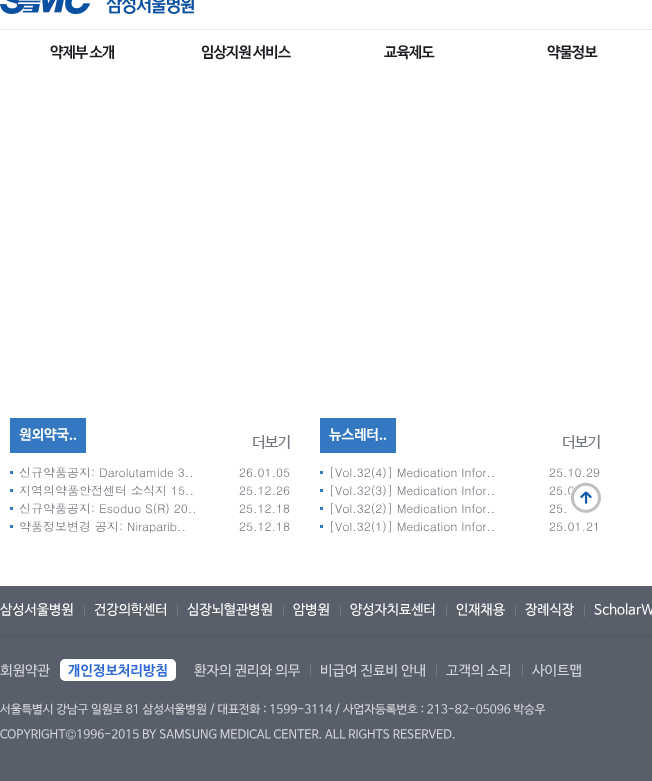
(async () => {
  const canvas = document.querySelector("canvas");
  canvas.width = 652;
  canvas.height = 781;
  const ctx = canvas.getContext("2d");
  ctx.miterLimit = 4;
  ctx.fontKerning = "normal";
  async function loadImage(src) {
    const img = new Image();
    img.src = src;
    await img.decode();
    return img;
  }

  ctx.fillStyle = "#595f6a";
  ctx.fillRect(0, 0, 652, 781);
  ctx.fillStyle = "#ffffff";
  ctx.fillRect(0, 0, 652, 586);
  ctx.drawImage(await loadImage("img/1.png"), 0, 0, 194, 14);
  ctx.fillStyle = "#ebeced";
  ctx.fillRect(0, 29, 652, 1);
  ctx.fillStyle = "#3378c1";
  ctx.fillRect(10, 418, 76, 35);
  ctx.drawImage(await loadImage("img/2.png"), 253, 435, 37, 14);
  for (const [x, y, w, h, color] of [
    [10, 471, 3, 3, "#3378c1"],
    [10, 489, 3, 3, "#3378c1"],
    [10, 507, 3, 3, "#3378c1"],
    [10, 525, 3, 3, "#3378c1"],
    [320, 418, 76, 35, "#3378c1"],
  ]) {
    ctx.fillStyle = color;
    ctx.fillRect(x, y, w, h);
  }
  ctx.drawImage(await loadImage("img/2.png"), 563, 435, 37, 14);
  for (const [x, y, w, h, color] of [
    [320, 471, 3, 3, "#3378c1"],
    [320, 489, 3, 3, "#3378c1"],
    [320, 507, 3, 3, "#3378c1"],
    [320, 525, 3, 3, "#3378c1"],
    [0, 635, 652, 1, "#515762"],
    [84, 605, 1, 12, "#75787d"],
    [177, 605, 1, 12, "#75787d"],
    [283, 605, 1, 12, "#75787d"],
    [340, 605, 1, 12, "#75787d"],
    [446, 605, 1, 12, "#75787d"],
    [515, 605, 1, 12, "#75787d"],
    [584, 605, 1, 12, "#75787d"],
  ]) {
    ctx.fillStyle = color;
    ctx.fillRect(x, y, w, h);
  }
  ctx.fillStyle = "#ffffff";
  ctx.beginPath();
  ctx.roundRect(60, 659, 116, 22, 5);
  ctx.fill();
  for (const [x, y, w, h, color] of [
    [310, 664, 1, 12, "#75787d"],
    [436, 664, 1, 12, "#75787d"],
    [522, 664, 1, 12, "#75787d"],
  ]) {
    ctx.fillStyle = color;
    ctx.fillRect(x, y, w, h);
  }
  ctx.letterSpacing = "-1px";
  ctx.font = "bold 15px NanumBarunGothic";
  ctx.fillStyle = "#1b1d21";
  for (const [text, x, y] of [
    ["약제부 소개", 50, 57],
    ["임상지원 서비스", 201, 57],
    ["교육제도", 384, 57],
    ["약물정보", 547, 57],
  ]) {
    ctx.fillText(text, x, y);
  }
  ctx.letterSpacing = "0px";
  ctx.font = "bold 14px NanumBarunGothic";
  ctx.fillStyle = "#ffffff";
  ctx.fillText("원외약국..", 19, 439);
  ctx.font = "12px Dotum";
  ctx.fillStyle = "#72767e";
  for (const [text, x, y] of [
    ["신규약품공지: Darolutamide 3..", 19, 477],
    ["26.01.05", 239, 477],
    ["지역의약품안전센터 소식지 15..", 19, 495],
    ["25.12.26", 239, 495],
    ["신규약품공지: Esoduo S(R) 20..", 19, 513],
    ["25.12.18", 239, 513],
    ["약품정보변경 공지: Niraparib..", 19, 531],
    ["25.12.18", 239, 531],
  ]) {
    ctx.fillText(text, x, y);
  }
  ctx.font = "bold 14px NanumBarunGothic";
  ctx.fillStyle = "#ffffff";
  ctx.fillText("뉴스레터..", 329, 439);
  ctx.font = "12px Dotum";
  ctx.fillStyle = "#72767e";
  for (const [text, x, y] of [
    ["[Vol.32(4)] Medication Infor..", 329, 477],
    ["25.10.29", 549, 477],
    ["[Vol.32(3)] Medication Infor..", 329, 495],
    ["25.0", 549, 495],
    ["[Vol.32(2)] Medication Infor..", 329, 513],
    ["25.", 549, 513],
    ["[Vol.32(1)] Medication Infor..", 329, 531],
    ["25.01.21", 549, 531],
  ]) {
    ctx.fillText(text, x, y);
  }
  ctx.fillStyle = "#ffffff";
  ctx.beginPath();
  ctx.arc(586, 498, 16, 0, Math.PI * 2);
  ctx.fill();
  ctx.drawImage(await loadImage("img/3.png"), 570, 482, 31, 31);
  ctx.font = "13.75px NanumBarunGothic";
  for (const [text, x, y] of [
    ["삼성서울병원", 0, 614],
    ["건강의학센터", 94, 614],
    ["심장뇌혈관병원", 187, 614],
    ["암병원", 293, 614],
    ["양성자치료센터", 350, 614],
    ["인재채용", 456, 614],
    ["장례식장", 525, 614],
    ["ScholarW", 594, 614],
  ]) {
    ctx.fillText(text, x, y);
  }
  ctx.font = "14px NanumBarunGothic";
  ctx.fillStyle = "#d6d8dc";
  ctx.fillText("회원약관", 0, 675);
  ctx.font = "bold 14px NanumBarunGothic";
  ctx.fillStyle = "#306ad7";
  ctx.fillText("개인정보처리방침", 68, 675);
  ctx.font = "14px NanumBarunGothic";
  ctx.fillStyle = "#d6d8dc";
  for (const [text, x, y] of [
    ["환자의 권리와 의무", 194, 675],
    ["비급여 진료비 안내", 320, 675],
    ["고객의 소리", 446, 675],
    ["사이트맵", 532, 675],
  ]) {
    ctx.fillText(text, x, y);
  }
  ctx.font = "12px NanumBarunGothic";
  ctx.fillText("서울특별시 강남구 일원로 81 삼성서울병원 / 대표전화 : 1599-3114 / 사업자등록번호 : 213-82-05096 박승우", 0, 713);
  ctx.fillText("COPYRIGHT©1996-2015 BY SAMSUNG MEDICAL CENTER. ALL RIGHTS RESERVED.", 0, 738);
})();
